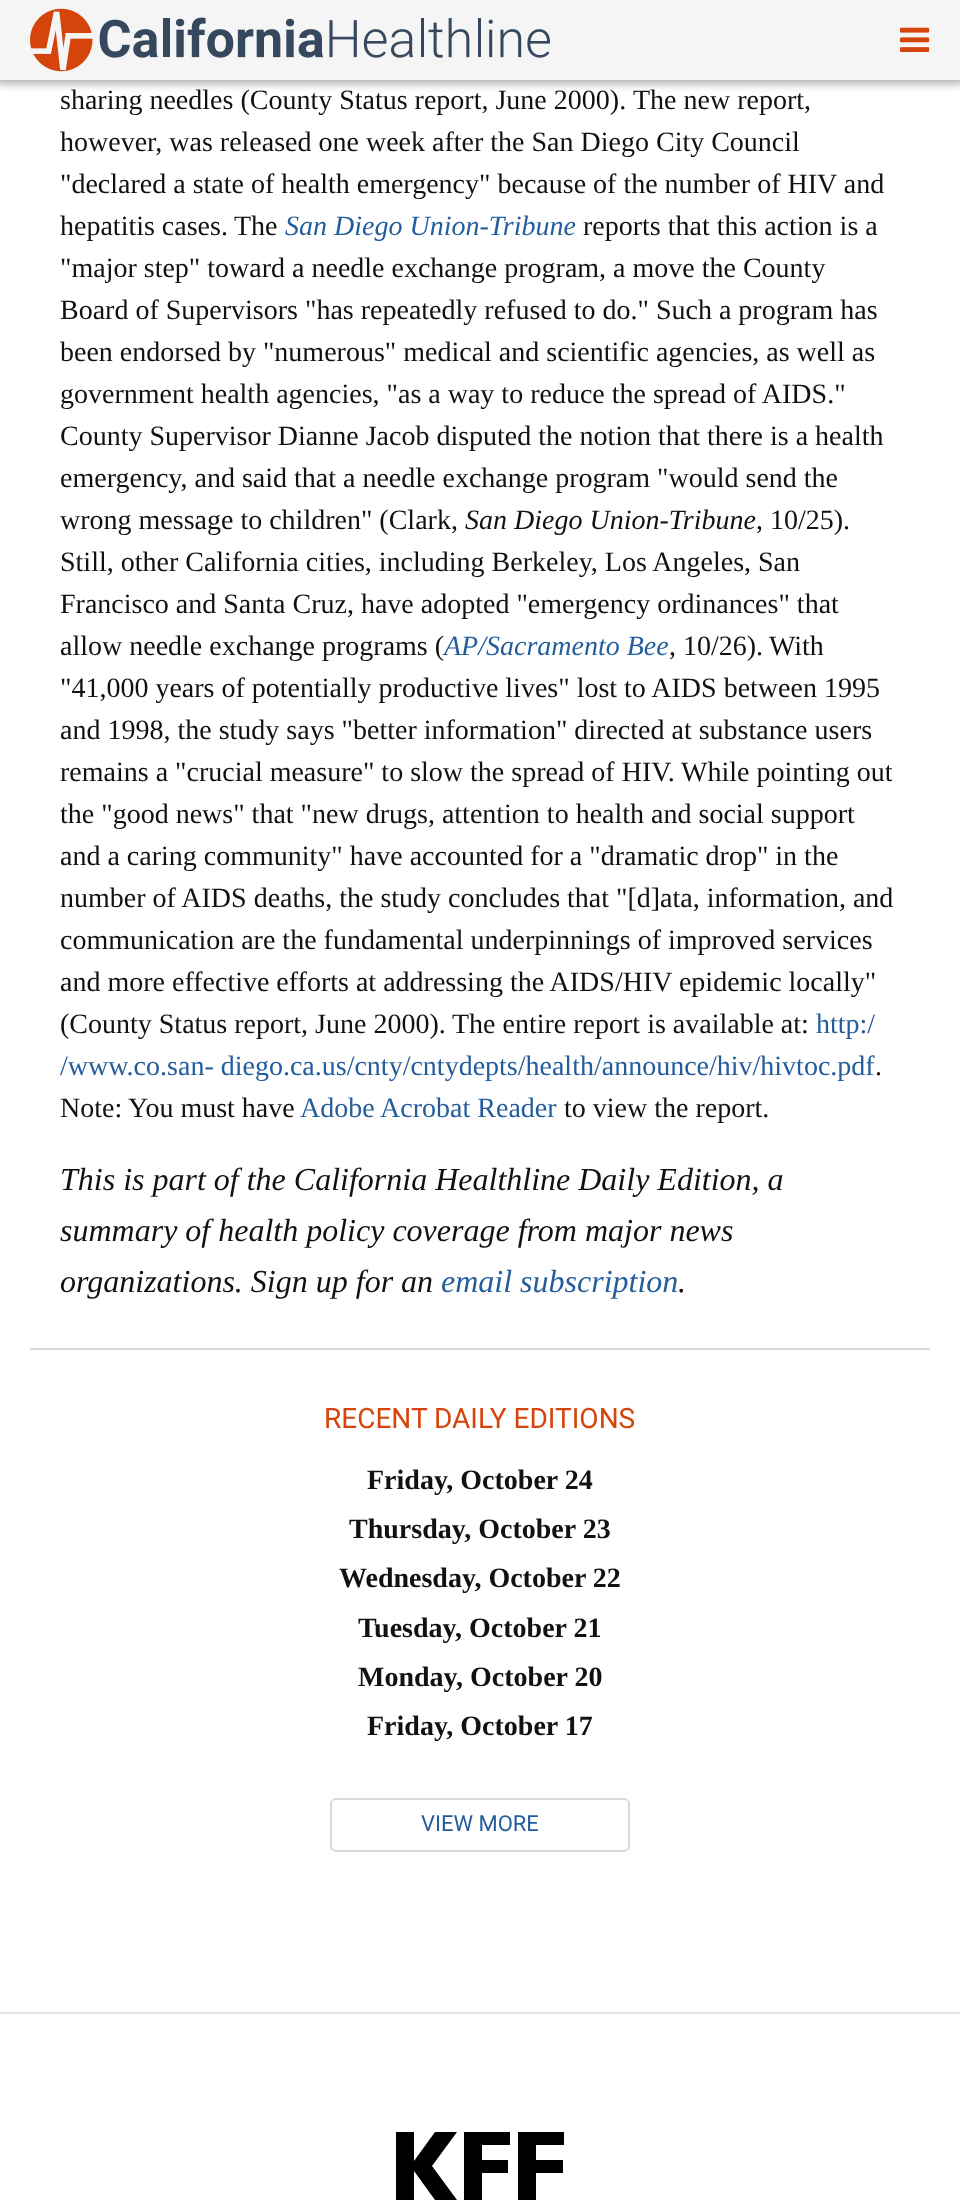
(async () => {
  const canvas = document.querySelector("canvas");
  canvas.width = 960;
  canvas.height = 2209;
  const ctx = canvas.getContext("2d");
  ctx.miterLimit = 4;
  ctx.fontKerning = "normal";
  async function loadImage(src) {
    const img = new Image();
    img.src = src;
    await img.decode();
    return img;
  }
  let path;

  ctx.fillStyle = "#ffffff";
  ctx.fillRect(0, 0, 960, 2209);
  ctx.fillStyle = "rgba(0, 0, 0, 0.3)";
  ctx.filter = "blur(4px)";
  ctx.beginPath();
  ctx.rect(-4, -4, 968, 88);
  ctx.fill();
  ctx.filter = "none";
  ctx.fillStyle = "#f5f5f5";
  ctx.fillRect(0, 0, 960, 80);
  ctx.drawImage(await loadImage("img/1.png"), 30, 8, 520, 64);
  ctx.drawImage(await loadImage("img/2.png"), 900, 27, 30, 25);
  ctx.fillStyle = "#d9d9d9";
  ctx.fillRect(30, 1348, 900, 2);
  ctx.beginPath();
  ctx.roundRect(331, 1799, 298, 52, 5);
  ctx.strokeStyle = "#d9d9d9";
  ctx.lineWidth = 2;
  ctx.stroke();
  ctx.fillStyle = "#e5e5e5";
  ctx.fillRect(0, 2012, 960, 2);
  ctx.fillStyle = "#000000";
  path = new Path2D("M435 2132L414 2161V2132H396V2200H414V2171L435 2200H457L432 2166L457 2132ZM464 2132V2200H482V2173H508V2160H482V2145H510V2132ZM518 2132V2200H536V2173H563V2160H536V2145H564V2132Z");
  ctx.fill(path);
  ctx.font = "28px Liberation Serif";
  ctx.fillStyle = "#111111";
  for (const [text, x, y] of [
    ["sharing needles (County Status report, June 2000).", 60, 109],
    ["The new report,", 633, 109],
    ["however, was released one week after the San Diego City Council", 60, 151],
    ["\"declared a state of health emergency\" because of the number of HIV and", 60, 193],
    ["hepatitis cases.", 60, 235],
    ["The", 234, 235],
  ]) {
    ctx.fillText(text, x, y);
  }
  ctx.font = "italic 28px Liberation Serif";
  ctx.fillStyle = "#245d9c";
  ctx.fillText("San Diego Union-Tribune", 285, 235);
  ctx.font = "28px Liberation Serif";
  ctx.fillStyle = "#111111";
  for (const [text, x, y] of [
    ["reports that this action is a", 583, 235],
    ["\"major step\" toward a needle exchange program, a move the County", 60, 277],
    ["Board of Supervisors \"has repeatedly refused to do.\" Such a program has", 60, 319],
    ["been endorsed by \"numerous\" medical and scientific agencies, as well as", 60, 361],
    ["government health agencies, \"as a way to reduce the spread of AIDS.\"", 60, 403],
    ["County Supervisor Dianne Jacob disputed the notion that there is a health", 60, 445],
    ["emergency, and said that a needle exchange program \"would send the", 60, 487],
    ["wrong message to children\" (Clark,", 60, 529],
  ]) {
    ctx.fillText(text, x, y);
  }
  ctx.font = "italic 28px Liberation Serif";
  ctx.fillText("San Diego Union-Tribune", 465, 529);
  ctx.font = "28px Liberation Serif";
  for (const [text, x, y] of [
    [", 10/25).", 756, 529],
    ["Still, other California cities, including Berkeley, Los Angeles, San", 60, 571],
    ["Francisco and Santa Cruz, have adopted \"emergency ordinances\" that", 60, 613],
    ["allow needle exchange programs (", 60, 655],
  ]) {
    ctx.fillText(text, x, y);
  }
  ctx.font = "italic 28px Liberation Serif";
  ctx.fillStyle = "#245d9c";
  ctx.fillText("AP/Sacramento Bee", 444, 655);
  ctx.font = "28px Liberation Serif";
  ctx.fillStyle = "#111111";
  for (const [text, x, y] of [
    [", 10/26).", 669, 655],
    ["With", 769, 655],
    ["\"41,000 years of potentially productive lives\" lost to AIDS between 1995", 60, 697],
    ["and 1998, the study says \"better information\" directed at substance users", 60, 739],
    ["remains a \"crucial measure\" to slow the spread of HIV.", 60, 781],
    ["While pointing out", 681, 781],
    ["the \"good news\" that \"new drugs, attention to health and social support", 60, 823],
    ["and a caring community\" have accounted for a \"dramatic drop\" in the", 60, 865],
    ["number of AIDS deaths, the study concludes that \"[d]ata, information, and", 60, 907],
    ["communication are the fundamental underpinnings of improved services", 60, 949],
    ["and more effective efforts at addressing the AIDS/HIV epidemic locally\"", 60, 991],
    ["(County Status report, June 2000).", 60, 1033],
    ["The entire report is available at:", 452, 1033],
  ]) {
    ctx.fillText(text, x, y);
  }
  ctx.fillStyle = "#245d9c";
  ctx.fillText("http:/", 816, 1033);
  ctx.fillText("/www.co.san- diego.ca.us/cnty/cntydepts/health/announce/hiv/hivtoc.pdf", 60, 1075);
  ctx.fillStyle = "#111111";
  for (const [text, x, y] of [
    [".", 875, 1075],
    ["Note:", 60, 1117],
    ["You must have", 128, 1117],
  ]) {
    ctx.fillText(text, x, y);
  }
  ctx.fillStyle = "#245d9c";
  ctx.fillText("Adobe Acrobat Reader", 300, 1117);
  ctx.fillStyle = "#111111";
  ctx.fillText("to view the report.", 564, 1117);
  ctx.font = "italic 32px Liberation Serif";
  for (const [text, x, y] of [
    ["This is part of the California Healthline Daily Edition, a", 60, 1190],
    ["summary of health policy coverage from major news", 60, 1241],
    ["organizations. Sign up for an", 60, 1292],
  ]) {
    ctx.fillText(text, x, y);
  }
  ctx.fillStyle = "#245d9c";
  ctx.fillText("email subscription", 441, 1292);
  ctx.fillStyle = "#111111";
  ctx.fillText(".", 678, 1292);
  ctx.font = "28px Roboto";
  ctx.fillStyle = "#d5440b";
  ctx.fillText("RECENT DAILY EDITIONS", 324, 1428);
  ctx.font = "bold 28px Liberation Serif";
  ctx.fillStyle = "#111111";
  for (const [text, x, y] of [
    ["Friday, October 24", 367, 1489],
    ["Thursday, October 23", 349, 1538],
    ["Wednesday, October 22", 339, 1587],
    ["Tuesday, October 21", 358, 1637],
    ["Monday, October 20", 358, 1686],
    ["Friday, October 17", 367, 1735],
  ]) {
    ctx.fillText(text, x, y);
  }
  ctx.font = "22px Roboto";
  ctx.fillStyle = "#245d9c";
  ctx.fillText("VIEW MORE", 421, 1831);
})();
